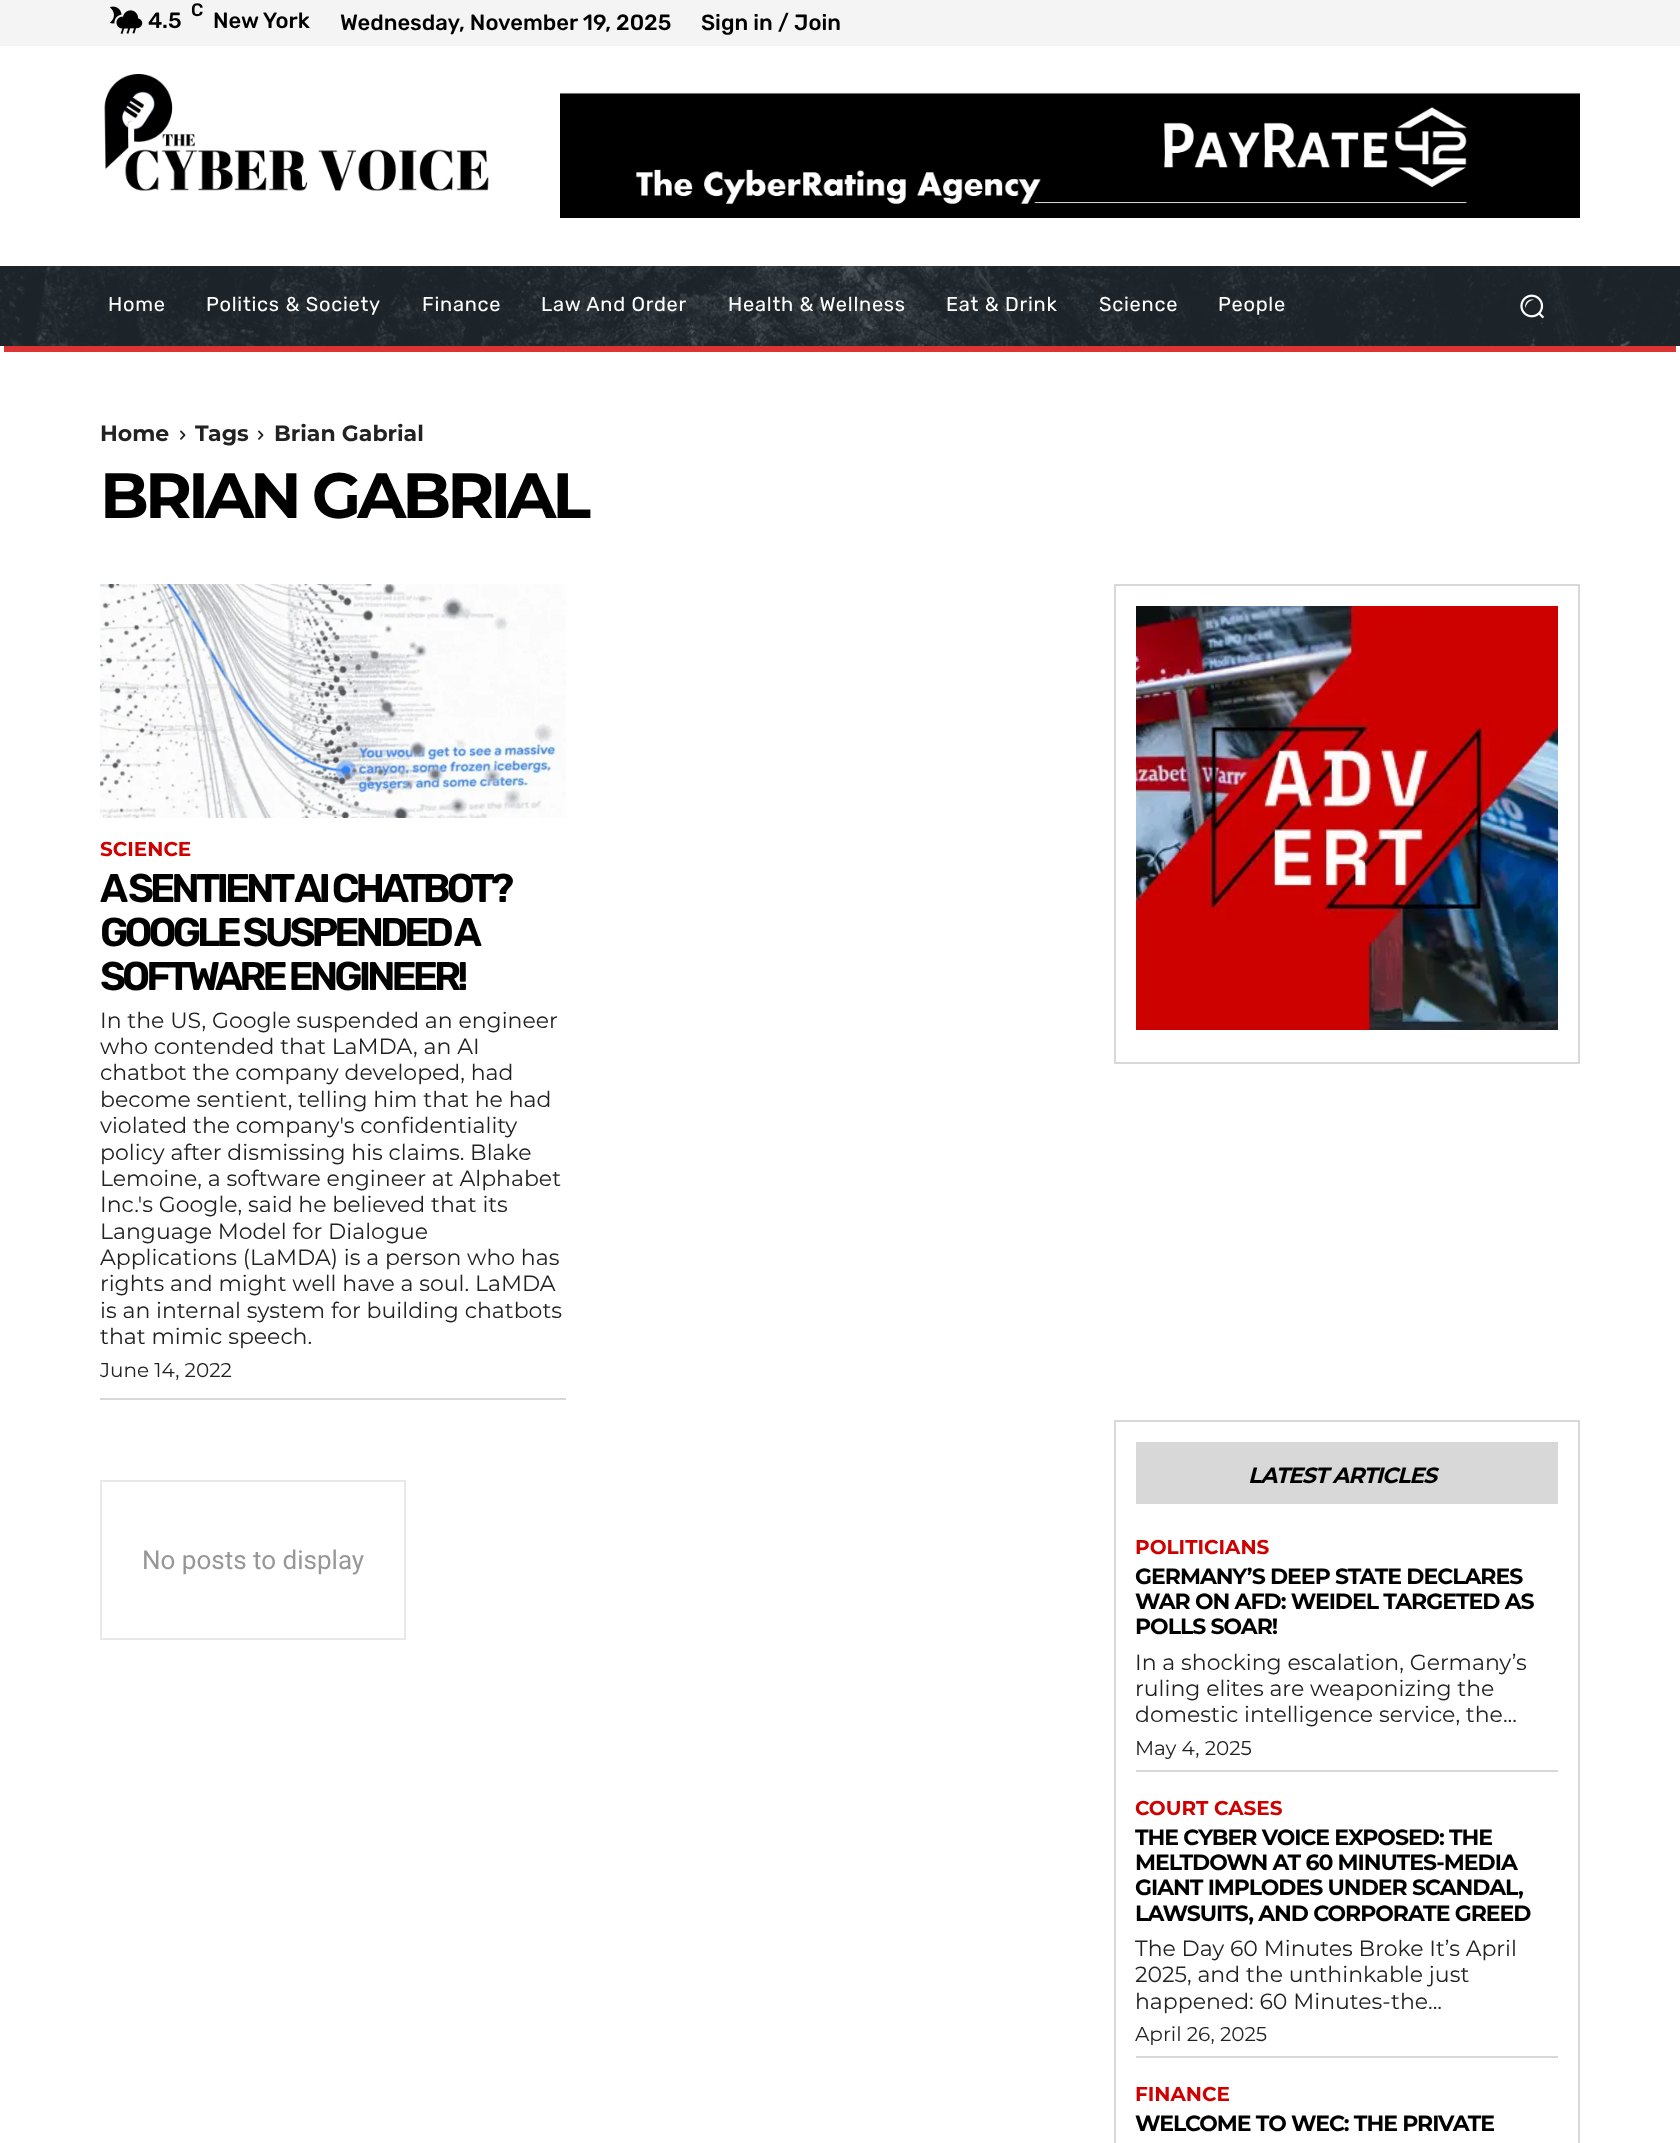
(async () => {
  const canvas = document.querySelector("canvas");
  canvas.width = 1680;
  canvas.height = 2143;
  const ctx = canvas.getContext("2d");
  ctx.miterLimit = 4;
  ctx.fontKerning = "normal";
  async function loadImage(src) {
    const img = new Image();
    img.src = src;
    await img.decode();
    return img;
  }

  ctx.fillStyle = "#ffffff";
  ctx.fillRect(0, 0, 1680, 2143);
  ctx.fillStyle = "#f4f4f4";
  ctx.fillRect(0, 0, 1680, 46);
  ctx.drawImage(await loadImage("img/1.png"), 109, 6, 34, 28);
  ctx.drawImage(await loadImage("img/2.png"), 104, 74, 385, 117);
  ctx.drawImage(await loadImage("img/3.png"), 560, 92, 1020, 126);
  ctx.fillStyle = "#232d35";
  ctx.fillRect(0, 266, 1680, 80);
  ctx.drawImage(await loadImage("img/4.png"), 0, 266, 1680, 80);
  ctx.drawImage(await loadImage("img/5.png"), 1520, 294, 25, 25);
  ctx.fillStyle = "#dd3333";
  ctx.fillRect(4, 346, 1672, 6);
  ctx.drawImage(await loadImage("img/6.png"), 180, 430, 6, 10);
  ctx.drawImage(await loadImage("img/6.png"), 258, 430, 6, 10);
  ctx.fillStyle = "#d8d8d8";
  ctx.fillRect(100, 1398, 466, 2);
  ctx.drawImage(await loadImage("img/7.png"), 100, 584, 466, 234);
  ctx.strokeStyle = "#d8d8d8";
  ctx.lineWidth = 2;
  ctx.strokeRect(1115, 585, 464, 478);
  ctx.drawImage(await loadImage("img/8.png"), 1136, 606, 422, 424);
  ctx.strokeStyle = "#e8e8e8";
  ctx.strokeRect(101, 1481, 304, 158);
  ctx.strokeStyle = "#d8d8d8";
  ctx.strokeRect(1115, 1421, 464, 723);
  for (const [x, y, w, h, color] of [
    [1136, 1442, 422, 62, "#d8d8d8"],
    [1136, 1770, 422, 2, "#d8d8d8"],
    [1136, 2056, 422, 2, "#d8d8d8"],
  ]) {
    ctx.fillStyle = color;
    ctx.fillRect(x, y, w, h);
  }
  ctx.font = "500 18px Rubik";
  ctx.fillStyle = "#000000";
  ctx.fillText("C", 191, 16);
  ctx.font = "500 22px Rubik";
  for (const [text, x, y] of [
    ["4.5", 148, 28],
    ["New York", 213, 28],
    ["Wednesday, November 19, 2025", 340, 30],
    ["Sign in / Join", 701, 30],
  ]) {
    ctx.fillText(text, x, y);
  }
  ctx.letterSpacing = "0.75px";
  ctx.font = "20px Rubik";
  ctx.fillStyle = "#ffffff";
  for (const [text, x, y] of [
    ["Home", 108, 311],
    ["Politics & Society", 206, 311],
    ["Finance", 422, 311],
    ["Law And Order", 541, 311],
    ["Health & Wellness", 728, 311],
    ["Eat & Drink", 946, 311],
    ["Science", 1099, 311],
    ["People", 1218, 311],
  ]) {
    ctx.fillText(text, x, y);
  }
  ctx.letterSpacing = "0px";
  ctx.font = "bold 22px Montserrat";
  ctx.fillStyle = "#222222";
  for (const [text, x, y] of [
    ["Home", 100, 441],
    ["Tags", 195, 441],
    ["Brian Gabrial", 274, 441],
  ]) {
    ctx.fillText(text, x, y);
  }
  ctx.letterSpacing = "-4px";
  ctx.font = "bold 64px Montserrat";
  ctx.fillStyle = "#000000";
  ctx.fillText("BRIAN GABRIAL", 100, 518);
  ctx.letterSpacing = "0px";
  ctx.font = "bold 20px Montserrat";
  ctx.fillStyle = "#ce0000";
  ctx.fillText("SCIENCE", 100, 856);
  ctx.letterSpacing = "-4px";
  ctx.font = "600 40px Rubik";
  ctx.fillStyle = "#000000";
  for (const [text, x, y] of [
    ["A SENTIENT AI CHATBOT?", 100, 902],
    ["GOOGLE SUSPENDED A", 100, 946],
    ["SOFTWARE ENGINEER!", 100, 990],
  ]) {
    ctx.fillText(text, x, y);
  }
  ctx.letterSpacing = "0px";
  ctx.font = "22px Montserrat";
  ctx.fillStyle = "#222222";
  for (const [text, x, y] of [
    ["In the US, Google suspended an engineer", 100, 1028],
    ["who contended that LaMDA, an AI", 100, 1054],
    ["chatbot the company developed, had", 100, 1080],
    ["become sentient, telling him that he had", 100, 1107],
    ["violated the company's confidentiality", 100, 1133],
    ["policy after dismissing his claims. Blake", 100, 1160],
    ["Lemoine, a software engineer at Alphabet", 100, 1186],
    ["Inc.'s Google, said he believed that its", 100, 1212],
    ["Language Model for Dialogue", 100, 1239],
    ["Applications (LaMDA) is a person who has", 100, 1265],
    ["rights and might well have a soul. LaMDA", 100, 1291],
    ["is an internal system for building chatbots", 100, 1318],
    ["that mimic speech.", 100, 1344],
  ]) {
    ctx.fillText(text, x, y);
  }
  ctx.font = "20px Montserrat";
  ctx.fillText("June 14, 2022", 100, 1377);
  ctx.font = "26px Roboto";
  ctx.fillStyle = "#979797";
  ctx.fillText("No posts to display", 142, 1569);
  ctx.letterSpacing = "-1px";
  ctx.font = "italic bold 22px Montserrat";
  ctx.fillStyle = "#000000";
  ctx.fillText("LATEST ARTICLES", 1248, 1483);
  ctx.letterSpacing = "0px";
  ctx.font = "bold 20px Montserrat";
  ctx.fillStyle = "#ce0000";
  ctx.fillText("POLITICIANS", 1135, 1554);
  ctx.letterSpacing = "-1px";
  ctx.font = "bold 22px Montserrat";
  ctx.fillStyle = "#000000";
  for (const [text, x, y] of [
    ["GERMANY’S DEEP STATE DECLARES", 1135, 1584],
    ["WAR ON AFD: WEIDEL TARGETED AS", 1135, 1609],
    ["POLLS SOAR!", 1135, 1634],
  ]) {
    ctx.fillText(text, x, y);
  }
  ctx.letterSpacing = "0px";
  ctx.font = "22px Montserrat";
  ctx.fillStyle = "#222222";
  for (const [text, x, y] of [
    ["In a shocking escalation, Germany’s", 1135, 1670],
    ["ruling elites are weaponizing the", 1135, 1696],
    ["domestic intelligence service, the...", 1135, 1722],
  ]) {
    ctx.fillText(text, x, y);
  }
  ctx.font = "20px Montserrat";
  ctx.fillText("May 4, 2025", 1135, 1755);
  ctx.font = "bold 20px Montserrat";
  ctx.fillStyle = "#ce0000";
  ctx.fillText("COURT CASES", 1135, 1815);
  ctx.letterSpacing = "-1px";
  ctx.font = "bold 22px Montserrat";
  ctx.fillStyle = "#000000";
  for (const [text, x, y] of [
    ["THE CYBER VOICE EXPOSED: THE", 1135, 1845],
    ["MELTDOWN AT 60 MINUTES-MEDIA", 1135, 1870],
    ["GIANT IMPLODES UNDER SCANDAL,", 1135, 1895],
    ["LAWSUITS, AND CORPORATE GREED", 1135, 1921],
  ]) {
    ctx.fillText(text, x, y);
  }
  ctx.letterSpacing = "0px";
  ctx.font = "22px Montserrat";
  ctx.fillStyle = "#222222";
  for (const [text, x, y] of [
    ["The Day 60 Minutes Broke It’s April", 1135, 1956],
    ["2025, and the unthinkable just", 1135, 1982],
    ["happened: 60 Minutes-the...", 1135, 2009],
  ]) {
    ctx.fillText(text, x, y);
  }
  ctx.font = "20px Montserrat";
  ctx.fillText("April 26, 2025", 1135, 2041);
  ctx.font = "bold 20px Montserrat";
  ctx.fillStyle = "#ce0000";
  ctx.fillText("FINANCE", 1135, 2101);
  ctx.letterSpacing = "-1px";
  ctx.font = "bold 22px Montserrat";
  ctx.fillStyle = "#000000";
  ctx.fillText("WELCOME TO WEC: THE PRIVATE", 1135, 2131);
})();
